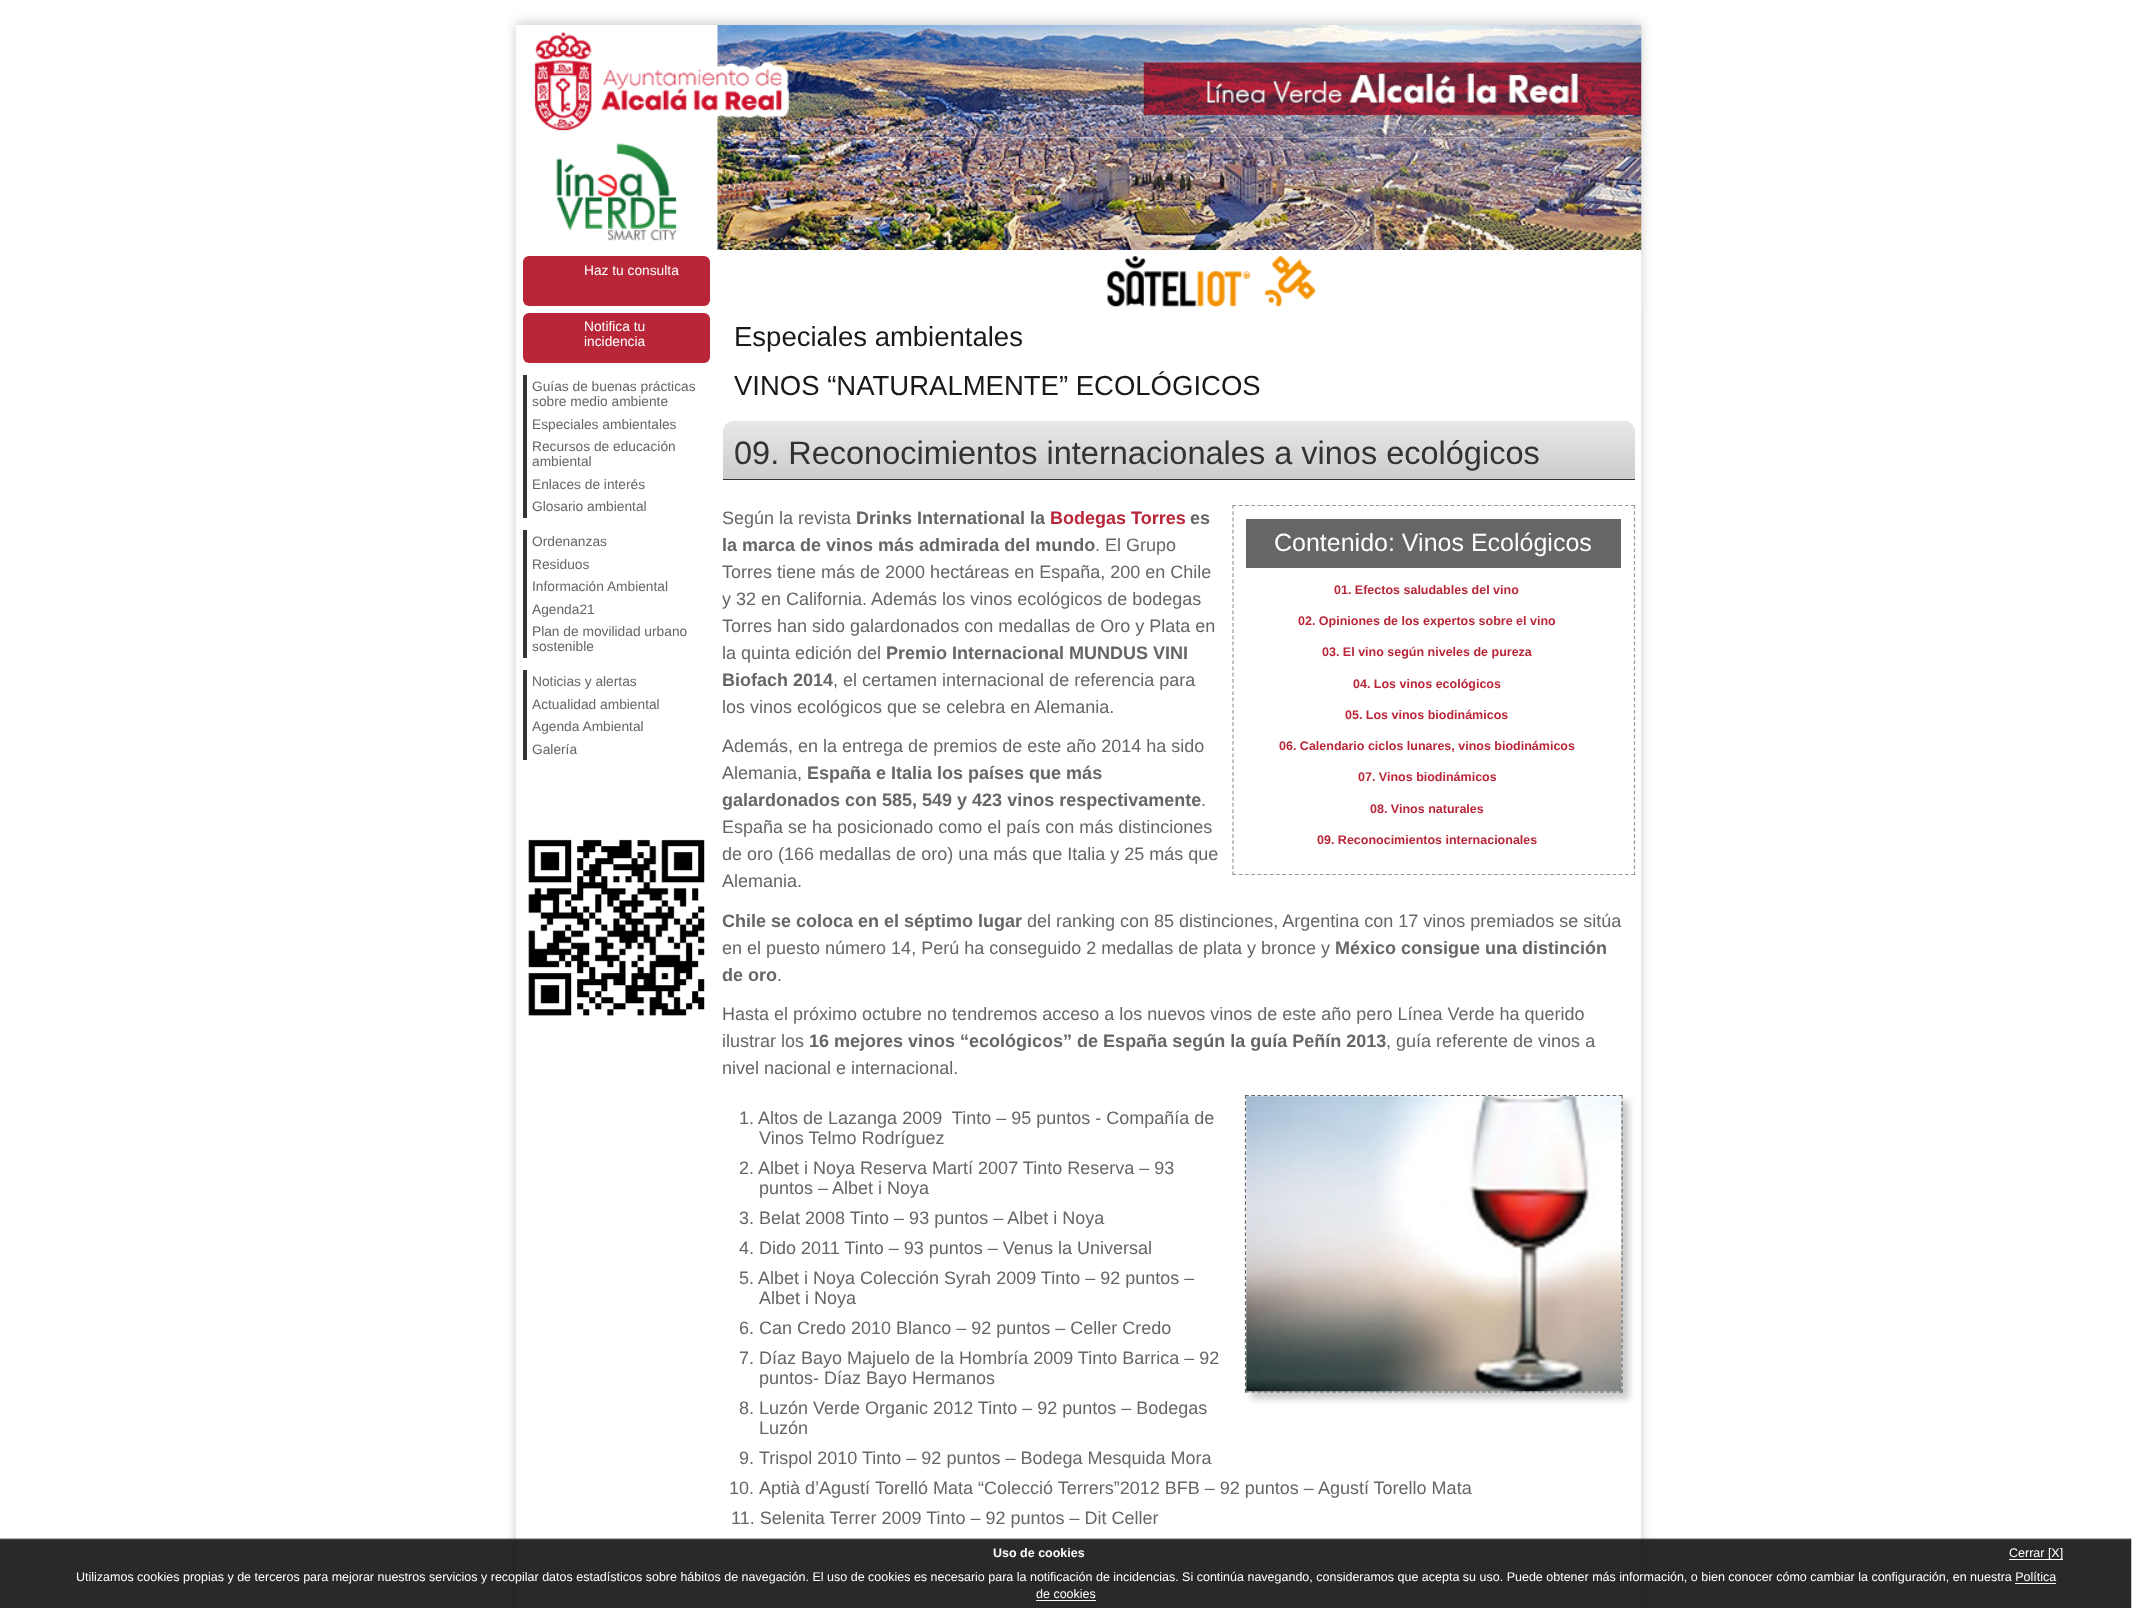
(async () => {
  const canvas = document.querySelector("canvas");
  canvas.width = 2156;
  canvas.height = 1608;
  const ctx = canvas.getContext("2d");
  ctx.miterLimit = 4;
  ctx.fontKerning = "normal";
  async function loadImage(src) {
    const img = new Image();
    img.src = src;
    await img.decode();
    return img;
  }
  let gradient, path;

  ctx.fillStyle = "#ffffff";
  ctx.fillRect(0, 0, 2156, 1608);
  ctx.fillStyle = "rgba(0, 0, 0, 0.2)";
  ctx.filter = "blur(6px)";
  ctx.beginPath();
  ctx.rect(516, 23, 1125, 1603);
  ctx.fill();
  ctx.filter = "none";
  ctx.fillStyle = "#ffffff";
  ctx.fillRect(516, 25, 1125, 1583);
  ctx.drawImage(await loadImage("img/1.png"), 534, 25, 1108, 113);
  ctx.drawImage(await loadImage("img/2.png"), 556, 137, 162, 104);
  ctx.drawImage(await loadImage("img/3.png"), 716, 137, 926, 113);
  ctx.drawImage(await loadImage("img/4.png"), 1107, 256, 535, 51);
  ctx.fillStyle = "#b82638";
  ctx.beginPath();
  ctx.roundRect(523, 256, 187, 50, 6);
  ctx.fill();
  ctx.beginPath();
  ctx.roundRect(523, 313, 187, 50, 6);
  ctx.fill();
  for (const [x, y, w, h, color] of [
    [523, 375, 4, 143, "#393535"],
    [523, 530, 4, 128, "#393535"],
    [523, 670, 4, 90, "#393535"],
  ]) {
    ctx.fillStyle = color;
    ctx.fillRect(x, y, w, h);
  }
  ctx.drawImage(await loadImage("img/5.png"), 528, 839, 177, 177);
  gradient = ctx.createLinearGradient(1179, 421, 1179, 479);
  gradient.addColorStop(0, "#e8e8e8");
  gradient.addColorStop(1, "#cccccc");
  ctx.fillStyle = gradient;
  ctx.beginPath();
  ctx.roundRect(723, 421, 912, 58, [10, 10, 0, 0]);
  ctx.fill();
  ctx.fillStyle = "#333333";
  ctx.fillRect(723, 479, 912, 1);
  path = new Path2D("M1232.5 505.5H1635");
  ctx.strokeStyle = "#999999";
  ctx.lineWidth = 1.2;
  ctx.setLineDash([3.75, 2.48]);
  ctx.stroke(path);
  path = new Path2D("M1634.5 505V875");
  ctx.setLineDash([3.75, 2.46]);
  ctx.stroke(path);
  path = new Path2D("M1232.5 874.5H1635");
  ctx.setLineDash([3.75, 2.48]);
  ctx.stroke(path);
  path = new Path2D("M1233 505V875");
  ctx.setLineDash([3.75, 2.46]);
  ctx.stroke(path);
  ctx.fillStyle = "#666666";
  ctx.fillRect(1246, 519, 375, 49);
  ctx.fillStyle = "#cccccc";
  ctx.filter = "blur(3px)";
  ctx.beginPath();
  ctx.rect(1251, 1101, 378, 298);
  ctx.fill();
  ctx.filter = "none";
  path = new Path2D("M1245 1095.5H1622.5");
  ctx.strokeStyle = "#666666";
  ctx.setLineDash([3.75, 2.48]);
  ctx.stroke(path);
  path = new Path2D("M1622 1095V1392.5");
  ctx.setLineDash([3.75, 2.5]);
  ctx.stroke(path);
  path = new Path2D("M1245 1392H1622.5");
  ctx.setLineDash([3.75, 2.48]);
  ctx.stroke(path);
  path = new Path2D("M1245.5 1095V1392.5");
  ctx.setLineDash([3.75, 2.5]);
  ctx.stroke(path);
  ctx.drawImage(await loadImage("img/6.png"), 1246, 1096, 376, 296);
  ctx.drawImage(await loadImage("img/7.png"), 0, 1538, 2132, 70);
  ctx.fillStyle = "#fcfcfc";
  ctx.fillRect(2009, 1559, 54, 1);
  ctx.fillRect(1036, 1600, 60, 1);
  ctx.font = "13.75px Liberation Sans";
  ctx.fillStyle = "#ffffff";
  for (const [text, x, y] of [
    ["Haz tu consulta", 584, 275],
    ["Notifica tu", 584, 331],
    ["incidencia", 584, 346],
  ]) {
    ctx.fillText(text, x, y);
  }
  ctx.fillStyle = "#666666";
  for (const [text, x, y] of [
    ["Guías de buenas prácticas", 532, 391],
    ["sobre medio ambiente", 532, 406],
    ["Especiales ambientales", 532, 429],
    ["Recursos de educación", 532, 451],
    ["ambiental", 532, 466],
    ["Enlaces de interés", 532, 489],
    ["Glosario ambiental", 532, 511],
    ["Ordenanzas", 532, 546],
    ["Residuos", 532, 569],
    ["Información Ambiental", 532, 591],
    ["Agenda21", 532, 614],
    ["Plan de movilidad urbano", 532, 636],
    ["sostenible", 532, 651],
    ["Noticias y alertas", 532, 686],
    ["Actualidad ambiental", 532, 709],
    ["Agenda Ambiental", 532, 731],
    ["Galería", 532, 754],
  ]) {
    ctx.fillText(text, x, y);
  }
  ctx.font = "27.5px Liberation Sans";
  ctx.fillStyle = "#1a1818";
  ctx.fillText("Especiales ambientales", 734, 346);
  ctx.fillText("VINOS “NATURALMENTE” ECOLÓGICOS", 734, 395);
  ctx.font = "32.5px Liberation Sans";
  ctx.fillStyle = "#333333";
  ctx.fillText("09. Reconocimientos internacionales a vinos ecológicos", 734, 464);
  ctx.font = "18px Liberation Sans";
  ctx.fillStyle = "#666666";
  ctx.fillText("Según la revista", 722, 524);
  ctx.font = "bold 18px Liberation Sans";
  ctx.fillText("Drinks International la", 856, 524);
  ctx.fillStyle = "#b82638";
  ctx.fillText("Bodegas Torres", 1050, 524);
  ctx.fillStyle = "#666666";
  ctx.fillText("es", 1190, 524);
  ctx.fillText("la marca de vinos más admirada del mundo", 722, 551);
  ctx.font = "18px Liberation Sans";
  for (const [text, x, y] of [
    [". El Grupo", 1095, 551],
    ["Torres tiene más de 2000 hectáreas en España, 200 en Chile", 722, 578],
    ["y 32 en California. Además los vinos ecológicos de bodegas", 722, 605],
    ["Torres han sido galardonados con medallas de Oro y Plata en", 722, 632],
    ["la quinta edición del", 722, 659],
  ]) {
    ctx.fillText(text, x, y);
  }
  ctx.font = "bold 18px Liberation Sans";
  ctx.fillText("Premio Internacional MUNDUS VINI", 886, 659);
  ctx.fillText("Biofach 2014", 722, 686);
  ctx.font = "18px Liberation Sans";
  ctx.fillText(", el certamen internacional de referencia para", 833, 686);
  ctx.fillText("los vinos ecológicos que se celebra en Alemania.", 722, 713);
  ctx.font = "25px Liberation Sans";
  ctx.fillStyle = "#ffffff";
  ctx.fillText("Contenido: Vinos Ecológicos", 1274, 551);
  ctx.font = "bold 12.5px Liberation Sans";
  ctx.fillStyle = "#b82638";
  for (const [text, x, y] of [
    ["01. Efectos saludables del vino", 1334, 594],
    ["02. Opiniones de los expertos sobre el vino", 1298, 625],
    ["03. El vino según niveles de pureza", 1322, 656],
    ["04. Los vinos ecológicos", 1353, 688],
    ["05. Los vinos biodinámicos", 1345, 719],
    ["06. Calendario ciclos lunares, vinos biodinámicos", 1279, 750],
    ["07. Vinos biodinámicos", 1358, 781],
    ["08. Vinos naturales", 1370, 813],
    ["09. Reconocimientos internacionales", 1317, 844],
  ]) {
    ctx.fillText(text, x, y);
  }
  ctx.font = "18px Liberation Sans";
  ctx.fillStyle = "#666666";
  ctx.fillText("Además, en la entrega de premios de este año 2014 ha sido", 722, 752);
  ctx.fillText("Alemania,", 722, 779);
  ctx.font = "bold 18px Liberation Sans";
  ctx.fillText("España e Italia los países que más", 807, 779);
  ctx.fillText("galardonados con 585, 549 y 423 vinos respectivamente", 722, 806);
  ctx.font = "18px Liberation Sans";
  for (const [text, x, y] of [
    [".", 1201, 806],
    ["España se ha posicionado como el país con más distinciones", 722, 833],
    ["de oro (166 medallas de oro) una más que Italia y 25 más que", 722, 860],
    ["Alemania.", 722, 887],
  ]) {
    ctx.fillText(text, x, y);
  }
  ctx.font = "bold 18px Liberation Sans";
  ctx.fillText("Chile se coloca en el séptimo lugar", 722, 927);
  ctx.font = "18px Liberation Sans";
  for (const [text, x, y] of [
    ["del ranking con 85 distinciones, Argentina con 17 vinos premiados se sitúa", 1027, 927],
    ["en el puesto número 14, Perú ha conseguido 2 medallas de", 722, 954],
    ["plata y bronce y", 1203, 954],
  ]) {
    ctx.fillText(text, x, y);
  }
  ctx.font = "bold 18px Liberation Sans";
  ctx.fillText("México consigue una distinción", 1335, 954);
  ctx.fillText("de oro", 722, 981);
  ctx.font = "18px Liberation Sans";
  for (const [text, x, y] of [
    [".", 777, 981],
    ["Hasta el próximo octubre no tendremos acceso a los nuevos vinos de este año pero Línea Verde ha querido", 722, 1020],
    ["ilustrar los", 722, 1047],
  ]) {
    ctx.fillText(text, x, y);
  }
  ctx.font = "bold 18px Liberation Sans";
  ctx.fillText("16 mejores vinos “ecológicos” de España según la guía Peñín 2013", 809, 1047);
  ctx.font = "18px Liberation Sans";
  for (const [text, x, y] of [
    [", guía referente de vinos a", 1386, 1047],
    ["nivel nacional e internacional.", 722, 1074],
    ["1. Altos de Lazanga 2009  Tinto – 95 puntos - Compañía de", 739, 1124],
    ["Vinos Telmo Rodríguez", 759, 1144],
    ["2. Albet i Noya Reserva Martí 2007 Tinto Reserva – 93", 739, 1174],
    ["puntos – Albet i Noya", 759, 1194],
    ["3. Belat 2008 Tinto – 93 puntos – Albet i Noya", 739, 1224],
    ["4. Dido 2011 Tinto – 93 puntos – Venus la Universal", 739, 1254],
    ["5. Albet i Noya Colección Syrah 2009 Tinto – 92 puntos –", 739, 1284],
    ["Albet i Noya", 759, 1304],
    ["6. Can Credo 2010 Blanco – 92 puntos – Celler Credo", 739, 1334],
    ["7. Díaz Bayo Majuelo de la Hombría 2009 Tinto Barrica – 92", 739, 1364],
    ["puntos- Díaz Bayo Hermanos", 759, 1384],
    ["8. Luzón Verde Organic 2012 Tinto – 92 puntos – Bodegas", 739, 1414],
    ["Luzón", 759, 1434],
    ["9.", 739, 1464],
    ["Trispol 2010", 759, 1464],
    ["Tinto – 92 puntos – Bodega Mesquida Mora", 862, 1464],
    ["10.", 729, 1494],
    ["Aptià d’Agustí", 759, 1494],
    ["Torelló Mata “Colecció Terrers”2012 BFB – 92 puntos – Agustí Torello Mata", 875, 1494],
    ["11. Selenita Terrer 2009 Tinto – 92 puntos – Dit Celler", 731, 1524],
  ]) {
    ctx.fillText(text, x, y);
  }
  ctx.font = "bold 12.5px Liberation Sans";
  ctx.fillStyle = "#ffffff";
  ctx.fillText("Uso de cookies", 993, 1557);
  ctx.font = "12.5px Liberation Sans";
  for (const [text, x, y] of [
    ["Cerrar [X]", 2009, 1557],
    ["Utilizamos cookies propias y de terceros para mejorar nuestros servicios y recopilar datos estadísticos sobre hábitos de navegación. El uso de cookies es necesario para la notificación de incidencias. Si continúa navegando, consideramos que acepta su uso. Puede obtener más información, o bien conocer cómo cambiar la configuración, en nuestra Política", 76, 1581],
    ["de cookies", 1036, 1598],
  ]) {
    ctx.fillText(text, x, y);
  }
  ctx.fillStyle = "#fcfcfc";
  ctx.fillRect(2015, 1583, 41, 1);
})();
